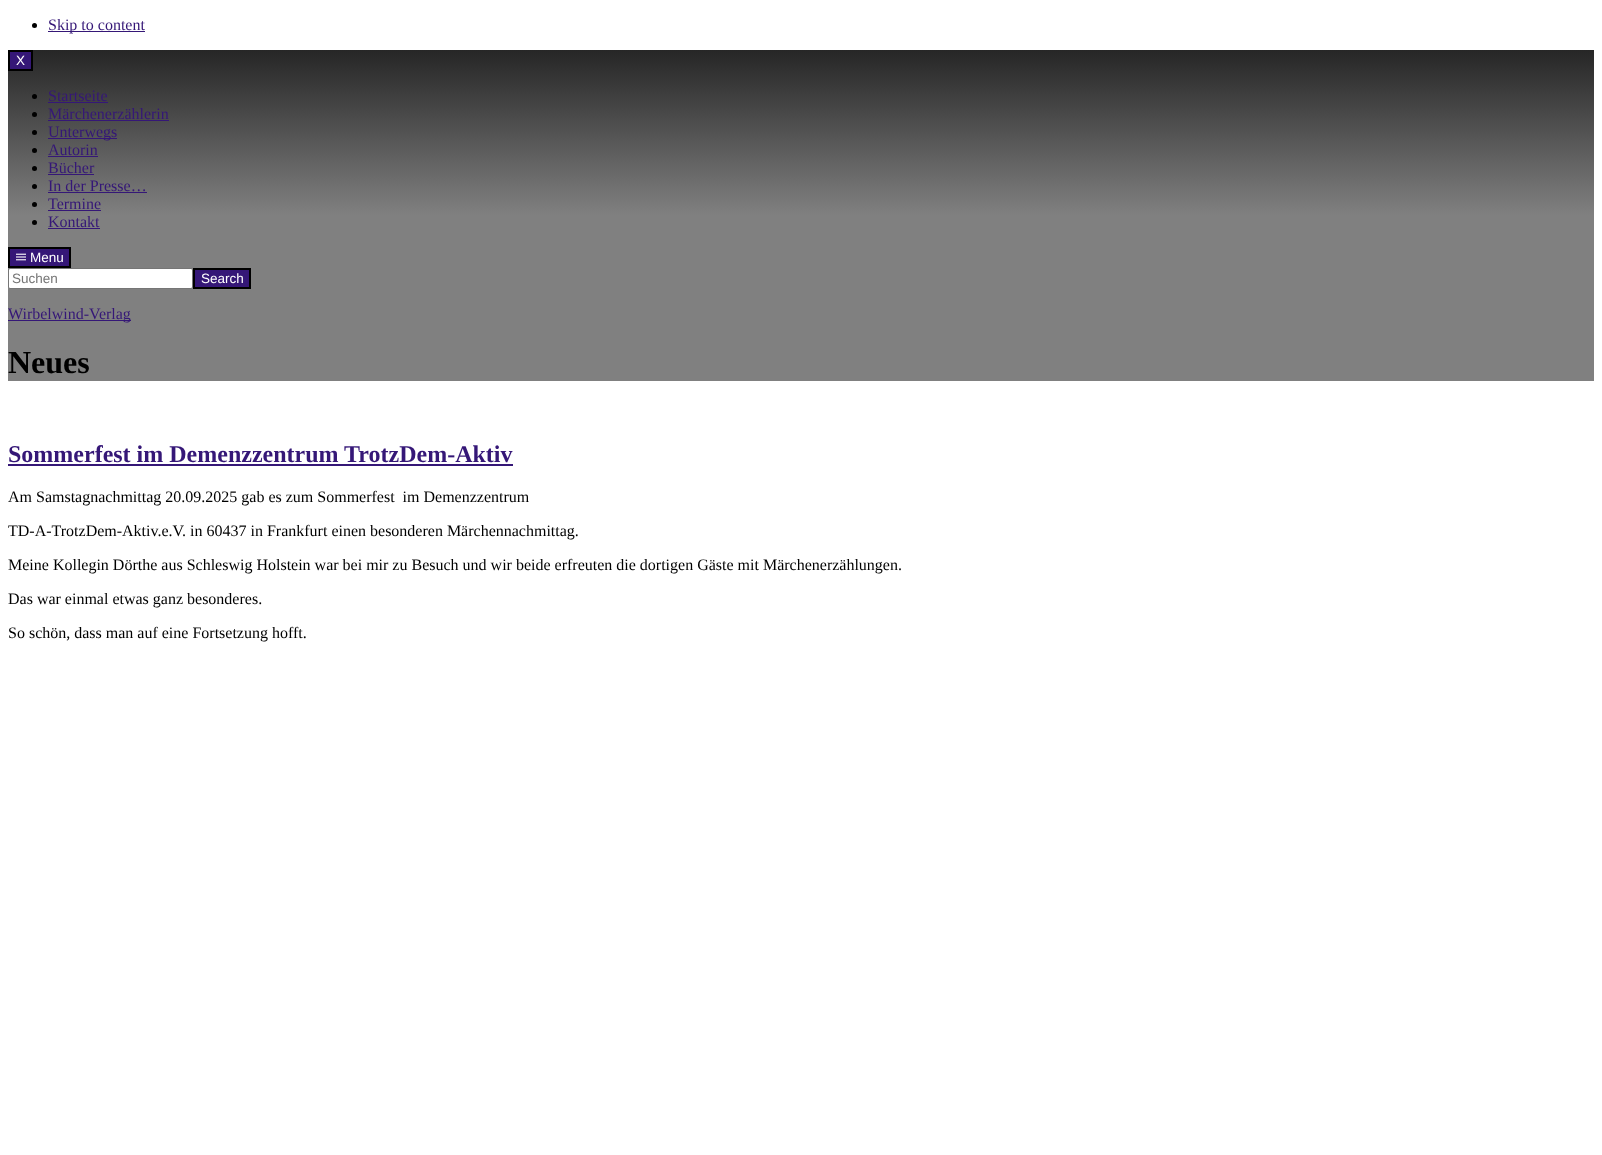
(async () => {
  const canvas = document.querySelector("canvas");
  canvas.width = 1602;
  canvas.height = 1155;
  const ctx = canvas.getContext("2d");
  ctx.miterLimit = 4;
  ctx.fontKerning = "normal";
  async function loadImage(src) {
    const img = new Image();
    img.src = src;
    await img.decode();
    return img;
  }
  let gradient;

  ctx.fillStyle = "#ffffff";
  ctx.fillRect(0, 0, 1602, 1155);
  ctx.fillStyle = "#000000";
  ctx.beginPath();
  ctx.arc(34.5, 25.5, 2.5, 0, Math.PI * 2);
  ctx.fill();
  ctx.fillStyle = "#351777";
  ctx.fillRect(48, 31, 97, 1);
  gradient = ctx.createLinearGradient(801, 381, 801, 50);
  gradient.addColorStop(0.5, "#808080");
  gradient.addColorStop(1, "#262626");
  ctx.fillStyle = gradient;
  ctx.fillRect(8, 50, 1586, 331);
  ctx.fillStyle = "#351777";
  ctx.beginPath();
  ctx.rect(9, 51, 23, 19);
  ctx.fill();
  ctx.strokeStyle = "#000000";
  ctx.lineWidth = 2;
  ctx.stroke();
  ctx.fillStyle = "#000000";
  ctx.beginPath();
  ctx.arc(34.5, 96.5, 2.5, 0, Math.PI * 2);
  ctx.fill();
  ctx.fillStyle = "#351777";
  ctx.fillRect(48, 102, 60, 1);
  ctx.fillStyle = "#000000";
  ctx.beginPath();
  ctx.arc(34.5, 114.5, 2.5, 0, Math.PI * 2);
  ctx.fill();
  ctx.fillStyle = "#351777";
  ctx.fillRect(48, 120, 121, 1);
  ctx.fillStyle = "#000000";
  ctx.beginPath();
  ctx.arc(34.5, 132.5, 2.5, 0, Math.PI * 2);
  ctx.fill();
  ctx.fillStyle = "#351777";
  ctx.fillRect(48, 138, 69, 1);
  ctx.fillStyle = "#000000";
  ctx.beginPath();
  ctx.arc(34.5, 150.5, 2.5, 0, Math.PI * 2);
  ctx.fill();
  ctx.fillStyle = "#351777";
  ctx.fillRect(48, 156, 50, 1);
  ctx.fillStyle = "#000000";
  ctx.beginPath();
  ctx.arc(34.5, 168.5, 2.5, 0, Math.PI * 2);
  ctx.fill();
  ctx.fillStyle = "#351777";
  ctx.fillRect(48, 174, 46, 1);
  ctx.fillStyle = "#000000";
  ctx.beginPath();
  ctx.arc(34.5, 186.5, 2.5, 0, Math.PI * 2);
  ctx.fill();
  ctx.fillStyle = "#351777";
  ctx.fillRect(48, 192, 99, 1);
  ctx.fillStyle = "#000000";
  ctx.beginPath();
  ctx.arc(34.5, 204.5, 2.5, 0, Math.PI * 2);
  ctx.fill();
  ctx.fillStyle = "#351777";
  ctx.fillRect(48, 210, 53, 1);
  ctx.fillStyle = "#000000";
  ctx.beginPath();
  ctx.arc(34.5, 222.5, 2.5, 0, Math.PI * 2);
  ctx.fill();
  ctx.fillStyle = "#351777";
  ctx.fillRect(48, 228, 52, 1);
  ctx.beginPath();
  ctx.rect(9, 248, 61, 19);
  ctx.fill();
  ctx.stroke();
  ctx.drawImage(await loadImage("img/1.png"), 16, 253, 10, 8);
  ctx.fillStyle = "#ffffff";
  ctx.beginPath();
  ctx.roundRect(8.5, 268.5, 184, 20, 1.5);
  ctx.fill();
  ctx.strokeStyle = "#767676";
  ctx.lineWidth = 1;
  ctx.stroke();
  ctx.fillStyle = "#351777";
  ctx.beginPath();
  ctx.rect(194, 269, 56, 19);
  ctx.fill();
  ctx.strokeStyle = "#000000";
  ctx.lineWidth = 2;
  ctx.stroke();
  ctx.fillRect(8, 320, 123, 1);
  ctx.fillRect(8, 464, 505, 2);
  ctx.font = "16px Liberation Serif";
  ctx.fillText("Skip to content", 48, 30);
  ctx.font = "13.5px Liberation Sans";
  ctx.fillStyle = "#ffffff";
  ctx.fillText("X", 16, 65);
  ctx.font = "16px Liberation Serif";
  ctx.fillStyle = "#351777";
  for (const [text, x, y] of [
    ["Startseite", 48, 101],
    ["Märchenerzählerin", 48, 119],
    ["Unterwegs", 48, 137],
    ["Autorin", 48, 155],
    ["Bücher", 48, 173],
    ["In der Presse…", 48, 191],
    ["Termine", 48, 209],
    ["Kontakt", 48, 227],
  ]) {
    ctx.fillText(text, x, y);
  }
  ctx.font = "13.5px Liberation Sans";
  ctx.fillStyle = "#ffffff";
  ctx.fillText("Menu", 30, 262);
  ctx.fillStyle = "#757575";
  ctx.fillText("Suchen", 12, 283);
  ctx.fillStyle = "#ffffff";
  ctx.fillText("Search", 201, 283);
  ctx.font = "16px Liberation Serif";
  ctx.fillStyle = "#351777";
  ctx.fillText("Wirbelwind-Verlag", 8, 319);
  ctx.font = "bold 32px Liberation Serif";
  ctx.fillStyle = "#000000";
  ctx.fillText("Neues", 8, 373);
  ctx.font = "bold 24px Liberation Serif";
  ctx.fillStyle = "#351777";
  ctx.fillText("Sommerfest im Demenzzentrum TrotzDem-Aktiv", 8, 462);
  ctx.font = "16px Liberation Serif";
  ctx.fillStyle = "#000000";
  for (const [text, x, y] of [
    ["Am Samstagnachmittag 20.09.2025 gab es zum Sommerfest  im Demenzzentrum", 8, 502],
    ["TD-A-TrotzDem-Aktiv.e.V. in 60437 in Frankfurt einen besonderen Märchennachmittag.", 8, 536],
    ["Meine Kollegin Dörthe aus Schleswig Holstein war bei mir zu Besuch und wir beide erfreuten die dortigen Gäste mit Märchenerzählungen.", 8, 570],
    ["Das war einmal etwas ganz besonderes.", 8, 604],
    ["So schön, dass man auf eine Fortsetzung hofft.", 8, 638],
  ]) {
    ctx.fillText(text, x, y);
  }
})();
